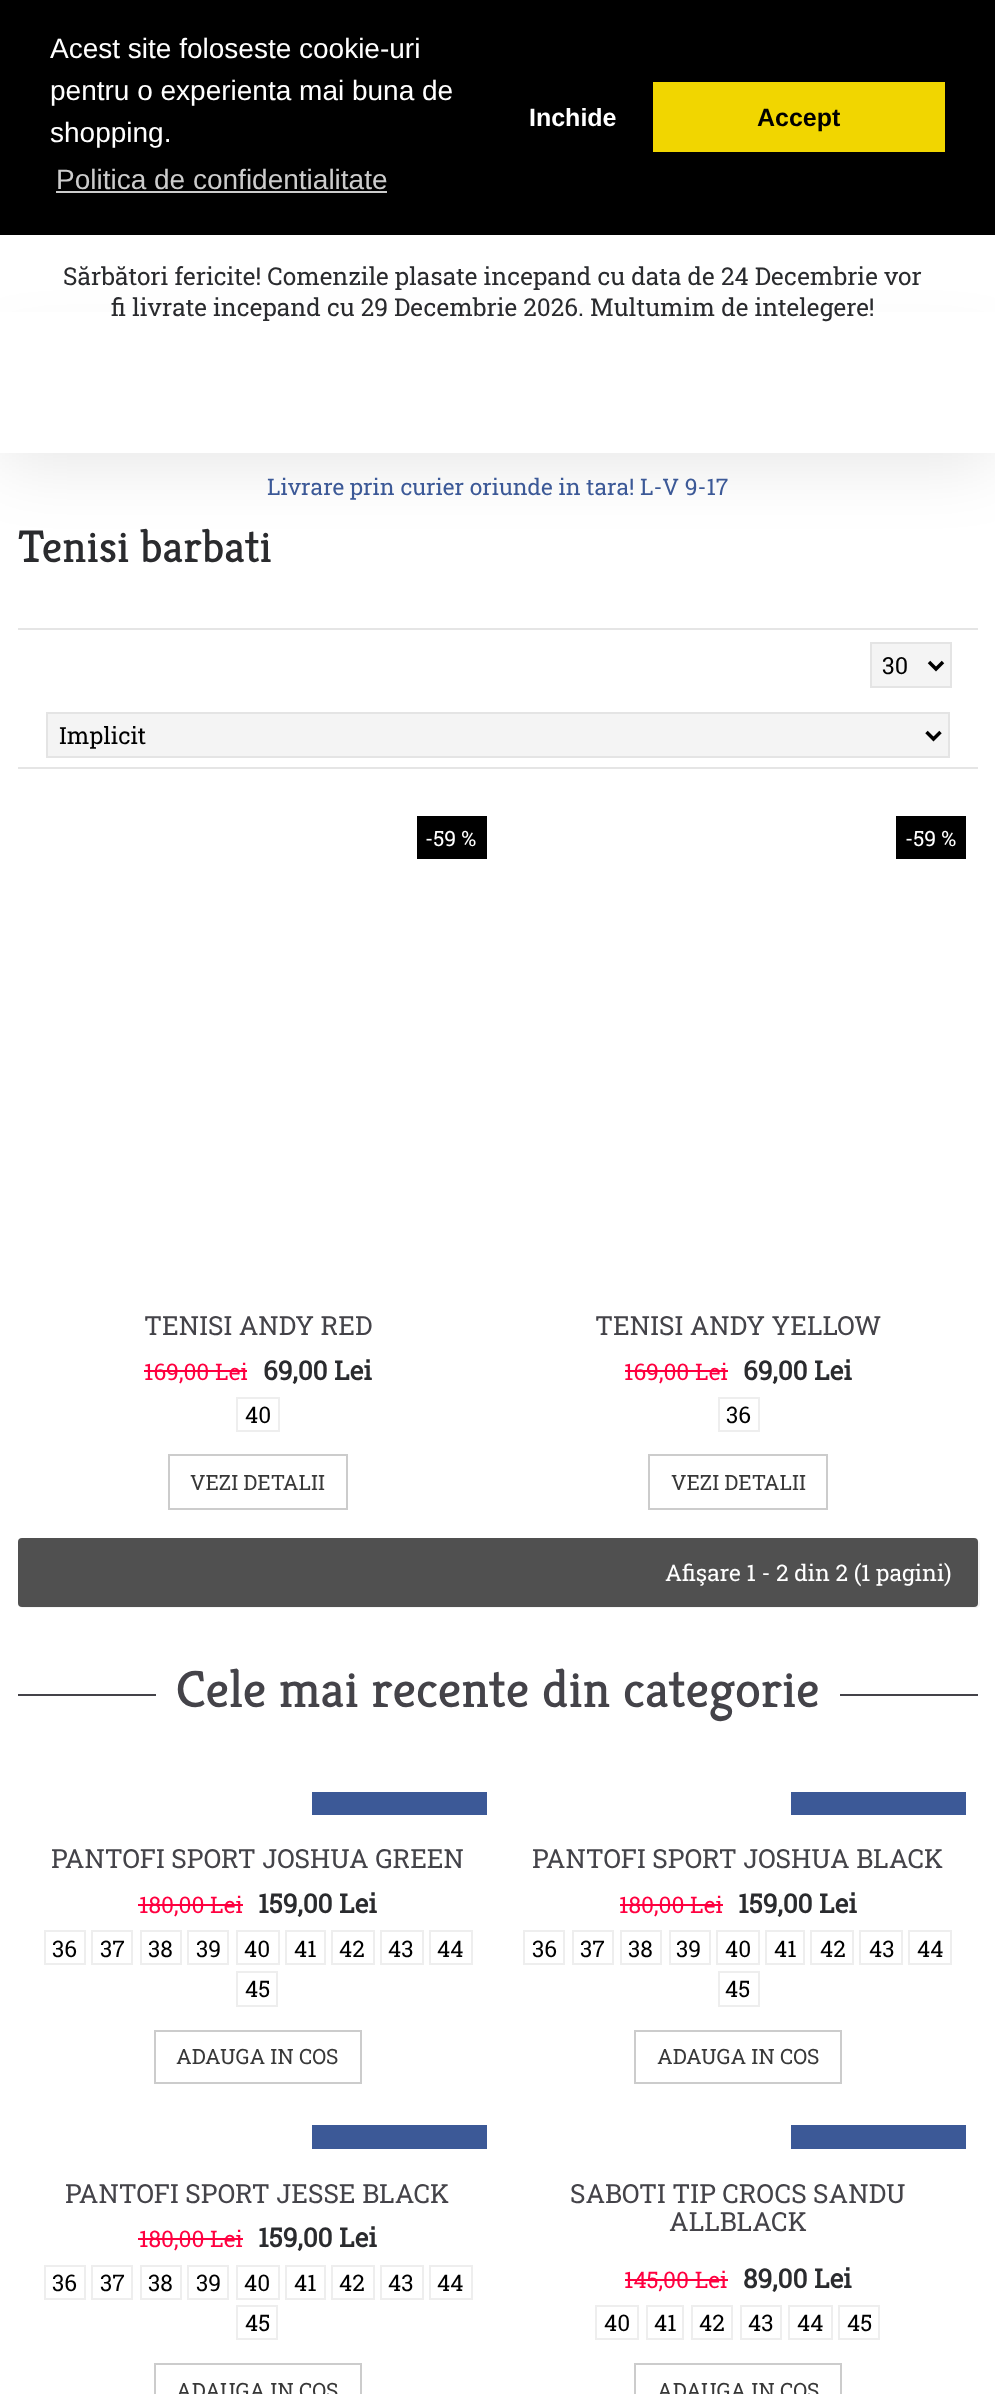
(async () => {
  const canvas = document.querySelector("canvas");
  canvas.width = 995;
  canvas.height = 2394;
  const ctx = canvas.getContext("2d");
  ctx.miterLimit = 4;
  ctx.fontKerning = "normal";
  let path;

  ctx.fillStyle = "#ffffff";
  ctx.fillRect(0, 0, 995, 2394);
  for (const [x, y, w, h, color] of [
    [0, 0, 995, 235, "#000000"],
    [56, 191, 331, 2, "#cccccc"],
    [653, 82, 292, 70, "#f1d600"],
  ]) {
    ctx.fillStyle = color;
    ctx.fillRect(x, y, w, h);
  }
  ctx.fillStyle = "rgba(0, 0, 0, 0.1)";
  ctx.filter = "blur(35px)";
  ctx.beginPath();
  ctx.rect(0, 357, 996, 105);
  ctx.fill();
  ctx.filter = "none";
  for (const [x, y, w, h, color] of [
    [0, 312, 995, 141, "#ffffff"],
    [18, 628, 960, 2, "#e5e5e5"],
    [18, 767, 960, 2, "#e5e5e5"],
  ]) {
    ctx.fillStyle = color;
    ctx.fillRect(x, y, w, h);
  }
  ctx.fillStyle = "#f4f4f4";
  ctx.beginPath();
  ctx.rect(871, 643, 80, 44);
  ctx.fill();
  ctx.strokeStyle = "#e4e4e4";
  ctx.lineWidth = 2;
  ctx.stroke();
  path = new Path2D("M929 662L936 669L943 662");
  ctx.strokeStyle = "#000000";
  ctx.lineWidth = 3.5;
  ctx.stroke(path);
  ctx.beginPath();
  ctx.rect(47, 713, 902, 44);
  ctx.fill();
  ctx.strokeStyle = "#e4e4e4";
  ctx.lineWidth = 2;
  ctx.stroke();
  path = new Path2D("M926.5 732L933.5 739L940.5 732");
  ctx.strokeStyle = "#000000";
  ctx.lineWidth = 3.5;
  ctx.stroke(path);
  ctx.fillStyle = "#000000";
  ctx.fillRect(417, 816, 70, 43);
  ctx.fillStyle = "#ff0040";
  ctx.fillRect(144, 1370, 103, 2);
  ctx.strokeStyle = "#eeeeee";
  ctx.lineWidth = 2;
  ctx.strokeRect(237, 1398, 42, 33);
  ctx.strokeStyle = "#cccccc";
  ctx.strokeRect(169, 1455, 178, 54);
  ctx.fillStyle = "#000000";
  ctx.fillRect(896, 816, 70, 43);
  ctx.fillStyle = "#ff0040";
  ctx.fillRect(625, 1370, 103, 2);
  ctx.strokeStyle = "#eeeeee";
  ctx.strokeRect(719, 1398, 40, 33);
  ctx.strokeStyle = "#cccccc";
  ctx.strokeRect(649, 1455, 178, 54);
  ctx.fillStyle = "#f5f5f5";
  path = new Path2D("M20 1606C20 1607 22 1608 23 1608H976C978 1608 980 1606 980 1604V1544C980 1543 979 1541 978 1541V1593C978 1594 981 1606 975 1606Z");
  ctx.fill(path);
  ctx.fillStyle = "#505050";
  ctx.beginPath();
  ctx.roundRect(18, 1538, 960, 69, 4);
  ctx.fill();
  for (const [x, y, w, h, color] of [
    [18, 1694, 960, 2, "#444349"],
    [156, 1694, 684, 2, "#ffffff"],
    [312, 1792, 175, 23, "#3c5997"],
    [138, 1904, 105, 2, "#ff0040"],
  ]) {
    ctx.fillStyle = color;
    ctx.fillRect(x, y, w, h);
  }
  ctx.strokeStyle = "#eeeeee";
  ctx.strokeRect(45, 1931, 40, 33);
  ctx.strokeRect(92, 1931, 40, 33);
  ctx.strokeRect(141, 1931, 40, 33);
  ctx.strokeRect(188, 1931, 40, 33);
  ctx.strokeRect(237, 1931, 42, 33);
  ctx.strokeRect(286, 1931, 39, 33);
  ctx.strokeRect(332, 1931, 42, 33);
  ctx.strokeRect(381, 1931, 42, 33);
  ctx.strokeRect(430, 1931, 42, 33);
  ctx.strokeRect(237, 1972, 40, 34);
  ctx.strokeStyle = "#cccccc";
  ctx.strokeRect(155, 2031, 206, 52);
  ctx.fillStyle = "#3c5997";
  ctx.fillRect(791, 1792, 175, 23);
  ctx.fillStyle = "#ff0040";
  ctx.fillRect(620, 1904, 103, 2);
  ctx.strokeStyle = "#eeeeee";
  ctx.strokeRect(524, 1931, 40, 33);
  ctx.strokeRect(573, 1931, 40, 33);
  ctx.strokeRect(621, 1931, 40, 33);
  ctx.strokeRect(670, 1931, 40, 33);
  ctx.strokeRect(717, 1931, 42, 33);
  ctx.strokeRect(766, 1931, 38, 33);
  ctx.strokeRect(811, 1931, 42, 33);
  ctx.strokeRect(860, 1931, 42, 33);
  ctx.strokeRect(909, 1931, 42, 33);
  ctx.strokeRect(719, 1972, 40, 34);
  ctx.strokeStyle = "#cccccc";
  ctx.strokeRect(635, 2031, 206, 52);
  ctx.fillStyle = "#3c5997";
  ctx.fillRect(312, 2125, 175, 24);
  ctx.fillStyle = "#ff0040";
  ctx.fillRect(138, 2238, 105, 2);
  ctx.strokeStyle = "#eeeeee";
  ctx.strokeRect(45, 2266, 40, 33);
  ctx.strokeRect(92, 2266, 40, 33);
  ctx.strokeRect(141, 2266, 40, 33);
  ctx.strokeRect(188, 2266, 40, 33);
  ctx.strokeRect(237, 2266, 42, 33);
  ctx.strokeRect(286, 2266, 39, 33);
  ctx.strokeRect(332, 2266, 42, 33);
  ctx.strokeRect(381, 2266, 42, 33);
  ctx.strokeRect(430, 2266, 42, 33);
  ctx.strokeRect(237, 2306, 40, 33);
  ctx.strokeStyle = "#cccccc";
  ctx.strokeRect(155, 2364, 206, 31);
  ctx.fillStyle = "#3c5997";
  ctx.fillRect(791, 2125, 175, 24);
  ctx.fillStyle = "#ff0040";
  ctx.fillRect(625, 2279, 103, 2);
  ctx.strokeStyle = "#eeeeee";
  ctx.strokeRect(596, 2306, 42, 33);
  ctx.strokeRect(647, 2306, 36, 33);
  ctx.strokeRect(692, 2306, 40, 33);
  ctx.strokeRect(741, 2306, 40, 33);
  ctx.strokeRect(789, 2306, 43, 33);
  ctx.strokeRect(839, 2306, 40, 33);
  ctx.strokeStyle = "#cccccc";
  ctx.strokeRect(635, 2364, 206, 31);
  ctx.font = "28px Liberation Sans";
  ctx.fillStyle = "#ffffff";
  for (const [text, x, y] of [
    ["Acest site foloseste cookie-uri", 50, 58],
    ["pentru o experienta mai buna de", 50, 100],
    ["shopping.", 50, 142],
  ]) {
    ctx.fillText(text, x, y);
  }
  ctx.fillStyle = "#cccccc";
  ctx.fillText("Politica de confidentialitate", 56, 189);
  ctx.font = "bold 25px Liberation Sans";
  ctx.fillStyle = "#ffffff";
  ctx.fillText("Inchide", 529, 126);
  ctx.fillStyle = "#000000";
  ctx.fillText("Accept", 757, 126);
  ctx.font = "24.5px Roboto Slab";
  ctx.fillStyle = "#2a2b2e";
  ctx.fillText("Sărbători fericite! Comenzile plasate incepand cu data de 24 Decembrie vor", 63, 285);
  ctx.fillText("fi livrate incepand cu 29 Decembrie 2026. Multumim de intelegere!", 111, 316);
  ctx.font = "22.75px Roboto Slab";
  ctx.fillStyle = "#3c5997";
  ctx.fillText("Livrare prin curier oriunde in tara! L-V 9-17", 267, 495);
  ctx.font = "300 45.5px Kreon";
  ctx.fillStyle = "#2a2b2e";
  ctx.fillText("Tenisi barbati", 18, 562);
  ctx.font = "23.5px Roboto Slab";
  ctx.fillStyle = "#000000";
  ctx.fillText("30", 882, 674);
  ctx.fillText("Implicit", 59, 744);
  ctx.font = "21px Roboto Slab";
  ctx.fillStyle = "#ffffff";
  ctx.fillText("-59 %", 425, 846);
  ctx.font = "26.25px Roboto Slab";
  ctx.fillStyle = "#444349";
  ctx.fillText("TENISI ANDY RED", 144, 1335);
  ctx.font = "22.75px Roboto Slab";
  ctx.fillStyle = "#ff0040";
  ctx.fillText("169,00 Lei", 144, 1380);
  ctx.font = "bold 26.25px Roboto Slab";
  ctx.fillStyle = "#2a2b2e";
  ctx.fillText("69,00 Lei", 263, 1380);
  ctx.font = "22.75px Roboto Slab";
  ctx.fillStyle = "#000000";
  ctx.fillText("40", 245, 1423);
  ctx.font = "21px Roboto Slab";
  ctx.fillStyle = "#383838";
  ctx.fillText("VEZI DETALII", 190, 1490);
  ctx.fillStyle = "#ffffff";
  ctx.fillText("-59 %", 905, 846);
  ctx.font = "26.25px Roboto Slab";
  ctx.fillStyle = "#444349";
  ctx.fillText("TENISI ANDY YELLOW", 595, 1335);
  ctx.font = "22.75px Roboto Slab";
  ctx.fillStyle = "#ff0040";
  ctx.fillText("169,00 Lei", 624, 1380);
  ctx.font = "bold 26.25px Roboto Slab";
  ctx.fillStyle = "#2a2b2e";
  ctx.fillText("69,00 Lei", 743, 1380);
  ctx.font = "22.75px Roboto Slab";
  ctx.fillStyle = "#000000";
  ctx.fillText("36", 726, 1423);
  ctx.font = "21px Roboto Slab";
  ctx.fillStyle = "#383838";
  ctx.fillText("VEZI DETALII", 671, 1490);
  ctx.font = "22.75px Roboto Slab";
  ctx.fillStyle = "#ffffff";
  ctx.fillText("Afişare 1 - 2 din 2 (1 pagini)", 665, 1581);
  ctx.font = "300 52.5px Kreon";
  ctx.fillStyle = "#444349";
  ctx.fillText("Cele mai recente din categorie", 176, 1707);
  ctx.font = "26.25px Roboto Slab";
  ctx.fillText("PANTOFI SPORT JOSHUA GREEN", 51, 1868);
  ctx.font = "22.75px Roboto Slab";
  ctx.fillStyle = "#ff0040";
  ctx.fillText("180,00 Lei", 139, 1913);
  ctx.font = "bold 26.25px Roboto Slab";
  ctx.fillStyle = "#2a2b2e";
  ctx.fillText("159,00 Lei", 258, 1913);
  ctx.font = "22.75px Roboto Slab";
  ctx.fillStyle = "#000000";
  for (const [text, x, y] of [
    ["36", 52, 1957],
    ["37", 100, 1957],
    ["38", 148, 1957],
    ["39", 196, 1957],
    ["40", 244, 1957],
    ["41", 294, 1957],
    ["42", 339, 1957],
    ["43", 388, 1957],
    ["44", 437, 1957],
    ["45", 245, 1997],
  ]) {
    ctx.fillText(text, x, y);
  }
  ctx.font = "21px Roboto Slab";
  ctx.fillStyle = "#383838";
  ctx.fillText("ADAUGA IN COS", 176, 2064);
  ctx.font = "26.25px Roboto Slab";
  ctx.fillStyle = "#444349";
  ctx.fillText("PANTOFI SPORT JOSHUA BLACK", 532, 1868);
  ctx.font = "22.75px Roboto Slab";
  ctx.fillStyle = "#ff0040";
  ctx.fillText("180,00 Lei", 619, 1913);
  ctx.font = "bold 26.25px Roboto Slab";
  ctx.fillStyle = "#2a2b2e";
  ctx.fillText("159,00 Lei", 738, 1913);
  ctx.font = "22.75px Roboto Slab";
  ctx.fillStyle = "#000000";
  for (const [text, x, y] of [
    ["36", 532, 1957],
    ["37", 580, 1957],
    ["38", 628, 1957],
    ["39", 676, 1957],
    ["40", 725, 1957],
    ["41", 774, 1957],
    ["42", 820, 1957],
    ["43", 869, 1957],
    ["44", 917, 1957],
    ["45", 725, 1997],
  ]) {
    ctx.fillText(text, x, y);
  }
  ctx.font = "21px Roboto Slab";
  ctx.fillStyle = "#383838";
  ctx.fillText("ADAUGA IN COS", 657, 2064);
  ctx.font = "26.25px Roboto Slab";
  ctx.fillStyle = "#444349";
  ctx.fillText("PANTOFI SPORT JESSE BLACK", 65, 2203);
  ctx.font = "22.75px Roboto Slab";
  ctx.fillStyle = "#ff0040";
  ctx.fillText("180,00 Lei", 139, 2247);
  ctx.font = "bold 26.25px Roboto Slab";
  ctx.fillStyle = "#2a2b2e";
  ctx.fillText("159,00 Lei", 258, 2247);
  ctx.font = "22.75px Roboto Slab";
  ctx.fillStyle = "#000000";
  for (const [text, x, y] of [
    ["36", 52, 2291],
    ["37", 100, 2291],
    ["38", 148, 2291],
    ["39", 196, 2291],
    ["40", 244, 2291],
    ["41", 294, 2291],
    ["42", 339, 2291],
    ["43", 388, 2291],
    ["44", 437, 2291],
    ["45", 245, 2331],
  ]) {
    ctx.fillText(text, x, y);
  }
  ctx.font = "21px Roboto Slab";
  ctx.fillStyle = "#383838";
  ctx.fillText("ADAUGA IN COS", 176, 2398);
  ctx.font = "26.25px Roboto Slab";
  ctx.fillStyle = "#444349";
  ctx.fillText("SABOTI TIP CROCS SANDU", 570, 2203);
  ctx.fillText("ALLBLACK", 669, 2231);
  ctx.font = "22.75px Roboto Slab";
  ctx.fillStyle = "#ff0040";
  ctx.fillText("145,00 Lei", 624, 2288);
  ctx.font = "bold 26.25px Roboto Slab";
  ctx.fillStyle = "#2a2b2e";
  ctx.fillText("89,00 Lei", 743, 2288);
  ctx.font = "22.75px Roboto Slab";
  ctx.fillStyle = "#000000";
  for (const [text, x, y] of [
    ["40", 604, 2331],
    ["41", 654, 2331],
    ["42", 699, 2331],
    ["43", 748, 2331],
    ["44", 797, 2331],
    ["45", 847, 2331],
  ]) {
    ctx.fillText(text, x, y);
  }
  ctx.font = "21px Roboto Slab";
  ctx.fillStyle = "#383838";
  ctx.fillText("ADAUGA IN COS", 657, 2398);
})();
